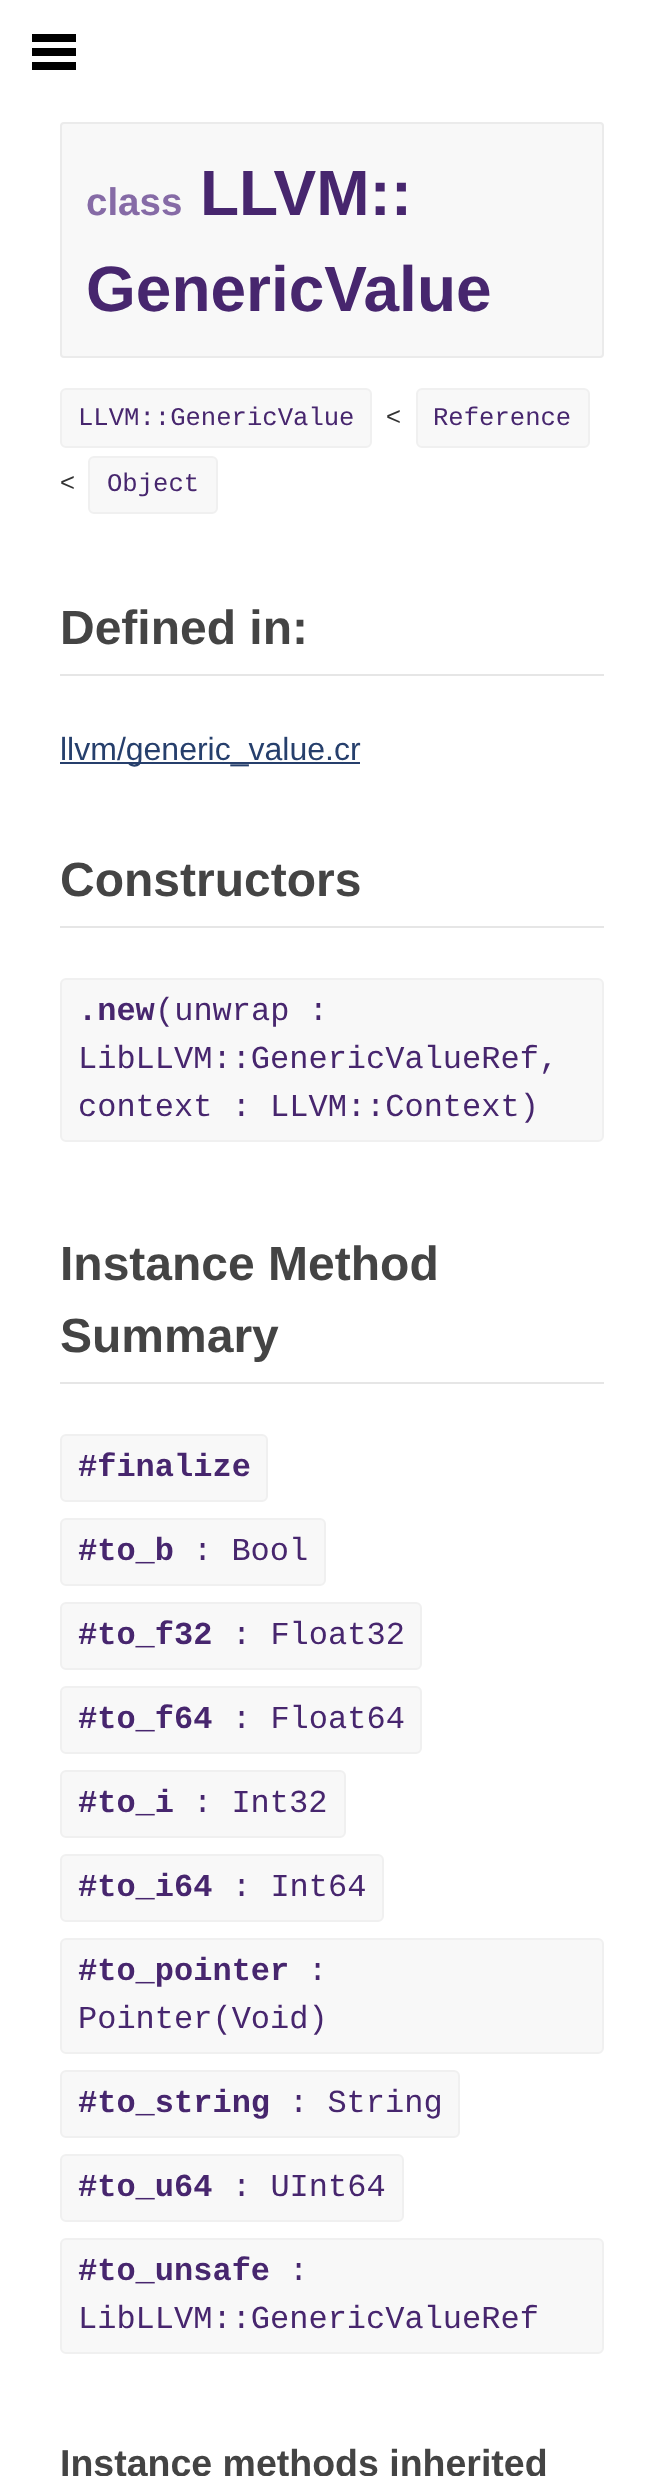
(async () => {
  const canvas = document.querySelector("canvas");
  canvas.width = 663;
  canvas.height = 2476;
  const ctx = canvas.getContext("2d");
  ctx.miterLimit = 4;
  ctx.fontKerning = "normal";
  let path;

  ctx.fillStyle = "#ffffff";
  ctx.fillRect(0, 0, 663, 2476);
  ctx.fillStyle = "#000000";
  path = new Path2D("M32 34V42H76V34ZM32 48V56H76V48ZM32 62V70H76V62Z");
  ctx.fill(path);
  ctx.fillStyle = "#f8f8f8";
  ctx.beginPath();
  ctx.roundRect(61, 123, 542, 234, 3);
  ctx.fill();
  ctx.strokeStyle = "#ebebeb";
  ctx.lineWidth = 2;
  ctx.stroke();
  ctx.beginPath();
  ctx.roundRect(61, 389, 310, 58, 5);
  ctx.fill();
  ctx.strokeStyle = "#f0f0f0";
  ctx.stroke();
  ctx.beginPath();
  ctx.roundRect(417, 389, 172, 58, 5);
  ctx.fill();
  ctx.stroke();
  ctx.beginPath();
  ctx.roundRect(89, 457, 128, 56, 5);
  ctx.fill();
  ctx.stroke();
  for (const [x, y, w, h, color] of [
    [60, 674, 544, 2, "#e6e6e6"],
    [60, 762, 300, 2, "#263f6c"],
    [60, 926, 544, 2, "#e6e6e6"],
  ]) {
    ctx.fillStyle = color;
    ctx.fillRect(x, y, w, h);
  }
  ctx.fillStyle = "#f8f8f8";
  ctx.beginPath();
  ctx.roundRect(61, 979, 542, 162, 5);
  ctx.fill();
  ctx.stroke();
  ctx.fillStyle = "#e6e6e6";
  ctx.fillRect(60, 1382, 544, 2);
  ctx.fillStyle = "#f8f8f8";
  ctx.beginPath();
  ctx.roundRect(61, 1435, 206, 66, 5);
  ctx.fill();
  ctx.stroke();
  ctx.beginPath();
  ctx.roundRect(61, 1519, 264, 66, 5);
  ctx.fill();
  ctx.stroke();
  ctx.beginPath();
  ctx.roundRect(61, 1603, 360, 66, 5);
  ctx.fill();
  ctx.stroke();
  ctx.beginPath();
  ctx.roundRect(61, 1687, 360, 66, 5);
  ctx.fill();
  ctx.stroke();
  ctx.beginPath();
  ctx.roundRect(61, 1771, 284, 66, 5);
  ctx.fill();
  ctx.stroke();
  ctx.beginPath();
  ctx.roundRect(61, 1855, 322, 66, 5);
  ctx.fill();
  ctx.stroke();
  ctx.beginPath();
  ctx.roundRect(61, 1939, 542, 114, 5);
  ctx.fill();
  ctx.stroke();
  ctx.beginPath();
  ctx.roundRect(61, 2071, 398, 66, 5);
  ctx.fill();
  ctx.stroke();
  ctx.beginPath();
  ctx.roundRect(61, 2155, 342, 66, 5);
  ctx.fill();
  ctx.stroke();
  ctx.beginPath();
  ctx.roundRect(61, 2239, 542, 114, 5);
  ctx.fill();
  ctx.stroke();
  ctx.font = "bold 38.5px Liberation Sans";
  ctx.fillStyle = "#866ba6";
  ctx.fillText("class", 86, 215);
  ctx.font = "bold 64px Liberation Sans";
  ctx.fillStyle = "#47266e";
  ctx.fillText("LLVM::", 200, 215);
  ctx.fillText("GenericValue", 86, 311);
  ctx.font = "25.6px Liberation Mono";
  ctx.fillText("LLVM::GenericValue", 78, 425);
  ctx.font = "25.6px Liberation Sans";
  ctx.fillStyle = "#333333";
  ctx.fillText("<", 386, 425);
  ctx.font = "25.6px Liberation Mono";
  ctx.fillStyle = "#47266e";
  ctx.fillText("Reference", 433, 425);
  ctx.font = "25.6px Liberation Sans";
  ctx.fillStyle = "#333333";
  ctx.fillText("<", 60, 491);
  ctx.font = "25.6px Liberation Mono";
  ctx.fillStyle = "#47266e";
  ctx.fillText("Object", 107, 491);
  ctx.font = "bold 48px Liberation Sans";
  ctx.fillStyle = "#444444";
  ctx.fillText("Defined in:", 60, 644);
  ctx.font = "32px Liberation Sans";
  ctx.fillStyle = "#263f6c";
  ctx.fillText("llvm/generic_value.cr", 60, 760);
  ctx.font = "bold 48px Liberation Sans";
  ctx.fillStyle = "#444444";
  ctx.fillText("Constructors", 60, 896);
  ctx.font = "bold 32px Liberation Mono";
  ctx.fillStyle = "#47266e";
  ctx.fillText(".new", 78, 1020);
  ctx.font = "32px Liberation Mono";
  for (const [text, x, y] of [
    ["(unwrap :", 155, 1020],
    ["LibLLVM::GenericValueRef,", 78, 1068],
    ["context : LLVM::Context)", 78, 1116],
  ]) {
    ctx.fillText(text, x, y);
  }
  ctx.font = "bold 48px Liberation Sans";
  ctx.fillStyle = "#444444";
  ctx.fillText("Instance Method", 60, 1280);
  ctx.fillText("Summary", 60, 1352);
  ctx.font = "bold 32px Liberation Mono";
  ctx.fillStyle = "#47266e";
  ctx.fillText("#finalize", 78, 1476);
  ctx.fillText("#to_b", 78, 1560);
  ctx.font = "32px Liberation Mono";
  ctx.fillText(": Bool", 193, 1560);
  ctx.font = "bold 32px Liberation Mono";
  ctx.fillText("#to_f32", 78, 1644);
  ctx.font = "32px Liberation Mono";
  ctx.fillText(": Float32", 232, 1644);
  ctx.font = "bold 32px Liberation Mono";
  ctx.fillText("#to_f64", 78, 1728);
  ctx.font = "32px Liberation Mono";
  ctx.fillText(": Float64", 232, 1728);
  ctx.font = "bold 32px Liberation Mono";
  ctx.fillText("#to_i", 78, 1812);
  ctx.font = "32px Liberation Mono";
  ctx.fillText(": Int32", 193, 1812);
  ctx.font = "bold 32px Liberation Mono";
  ctx.fillText("#to_i64", 78, 1896);
  ctx.font = "32px Liberation Mono";
  ctx.fillText(": Int64", 232, 1896);
  ctx.font = "bold 32px Liberation Mono";
  ctx.fillText("#to_pointer", 78, 1980);
  ctx.font = "32px Liberation Mono";
  ctx.fillText(":", 308, 1980);
  ctx.fillText("Pointer(Void)", 78, 2028);
  ctx.font = "bold 32px Liberation Mono";
  ctx.fillText("#to_string", 78, 2112);
  ctx.font = "32px Liberation Mono";
  ctx.fillText(": String", 289, 2112);
  ctx.font = "bold 32px Liberation Mono";
  ctx.fillText("#to_u64", 78, 2196);
  ctx.font = "32px Liberation Mono";
  ctx.fillText(": UInt64", 232, 2196);
  ctx.font = "bold 32px Liberation Mono";
  ctx.fillText("#to_unsafe", 78, 2280);
  ctx.font = "32px Liberation Mono";
  ctx.fillText(":", 289, 2280);
  ctx.fillText("LibLLVM::GenericValueRef", 78, 2328);
  ctx.font = "bold 37.5px Liberation Sans";
  ctx.fillStyle = "#444444";
  ctx.fillText("Instance methods inherited", 60, 2476);
})();
